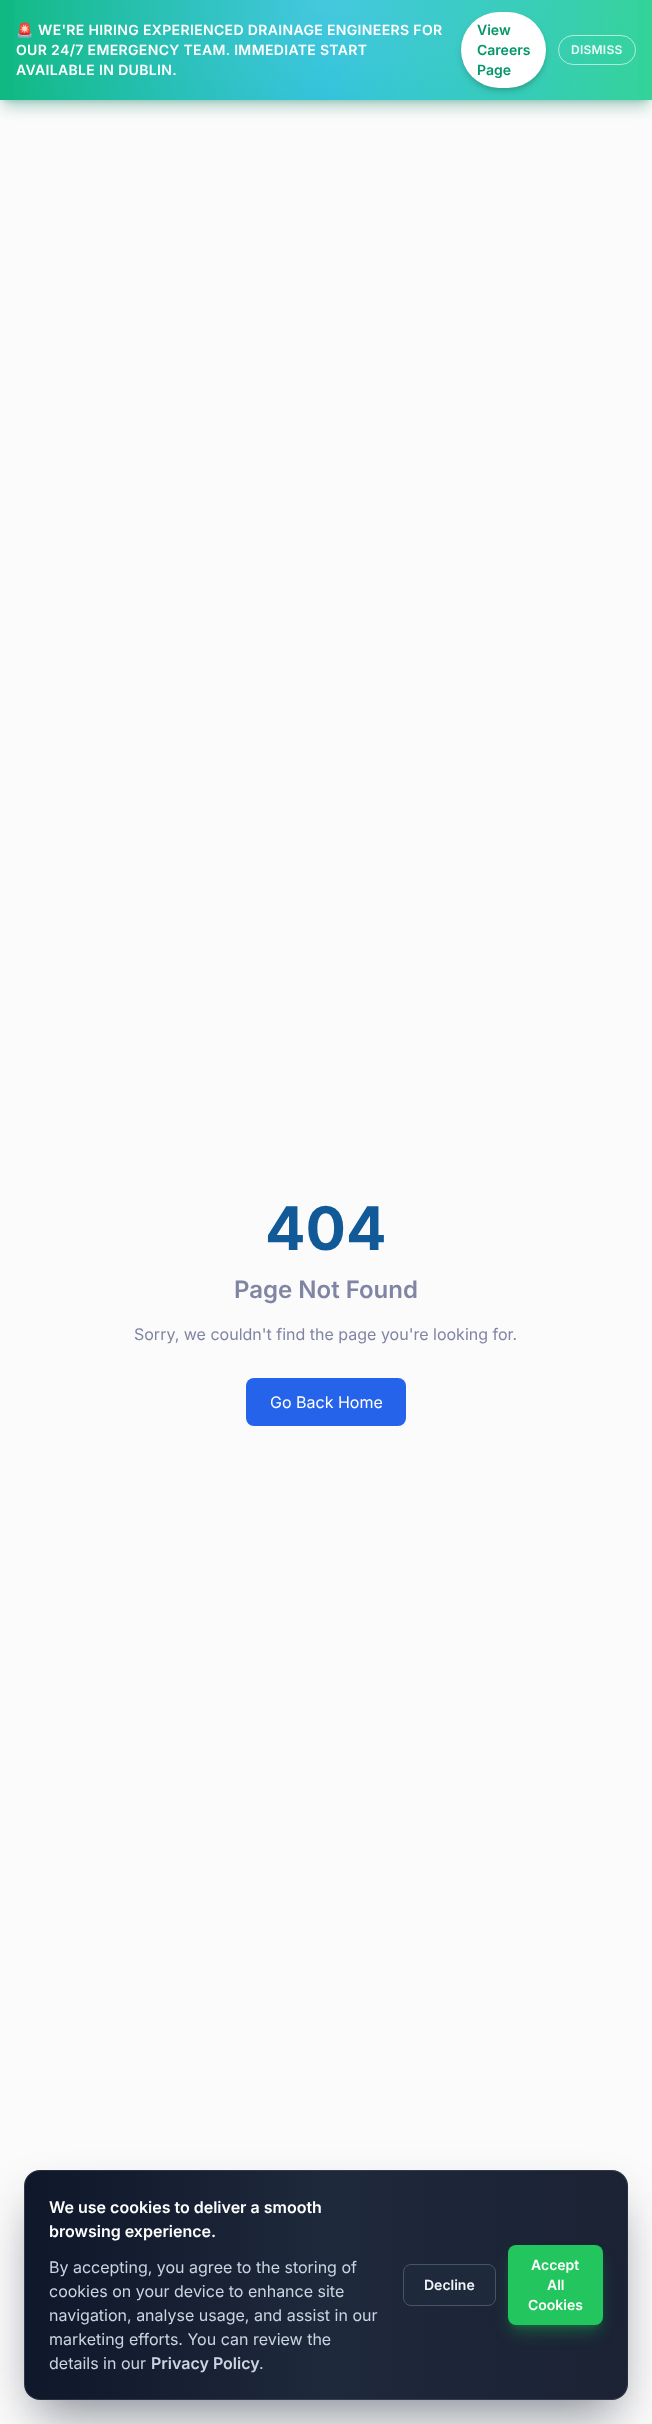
(async () => {
  const canvas = document.querySelector("canvas");
  canvas.width = 652;
  canvas.height = 2424;
  const ctx = canvas.getContext("2d");
  ctx.miterLimit = 4;
  ctx.fontKerning = "normal";
  let gradient, path;

  ctx.fillStyle = "#fbfbfb";
  ctx.fillRect(0, 0, 652, 2424);
  ctx.fillStyle = "rgba(4, 120, 87, 0.3)";
  ctx.filter = "blur(3px)";
  ctx.beginPath();
  ctx.rect(4, 8, 644, 92);
  ctx.fill();
  ctx.filter = "none";
  ctx.filter = "blur(7.5px)";
  ctx.beginPath();
  ctx.rect(3, 13, 646, 94);
  ctx.fill();
  ctx.filter = "none";
  gradient = ctx.createLinearGradient(0, 50, 652, 50);
  gradient.addColorStop(0, "#10b981");
  gradient.addColorStop(0.5, "#06b6d4");
  gradient.addColorStop(1, "#34d399");
  ctx.fillStyle = gradient;
  ctx.fillRect(0, 0, 652, 100);
  ctx.fillStyle = "rgba(6, 78, 59, 0.3)";
  ctx.filter = "blur(2px)";
  ctx.beginPath();
  ctx.roundRect(463, 16, 81, 72, 36);
  ctx.fill();
  ctx.filter = "none";
  ctx.filter = "blur(3px)";
  ctx.beginPath();
  ctx.roundRect(462, 17, 83, 74, 37);
  ctx.fill();
  ctx.filter = "none";
  ctx.fillStyle = "#ffffff";
  ctx.beginPath();
  ctx.roundRect(461, 12, 85, 76, 38);
  ctx.fill();
  ctx.beginPath();
  ctx.roundRect(558.5, 35.5, 77, 29, 14.5);
  ctx.strokeStyle = "rgba(255, 255, 255, 0.6)";
  ctx.stroke();
  gradient = ctx.createRadialGradient(326, 0, 0, 326, 0, 341);
  gradient.addColorStop(0, "rgba(255, 255, 255, 0.25)");
  gradient.addColorStop(1, "rgba(255, 255, 255, 0)");
  ctx.fillStyle = gradient;
  ctx.fillRect(14, 0, 624, 100);
  ctx.fillStyle = "#2563eb";
  ctx.beginPath();
  ctx.roundRect(246, 1378, 160, 48, 8);
  ctx.fill();
  ctx.save();
  path = new Path2D("M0 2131H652V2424H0ZM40 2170H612C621 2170 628 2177 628 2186V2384C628 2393 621 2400 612 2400H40C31 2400 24 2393 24 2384V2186C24 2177 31 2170 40 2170Z");
  ctx.clip(path, "evenodd");
  ctx.fillStyle = "rgba(15, 23, 42, 0.5)";
  ctx.filter = "blur(25px)";
  ctx.beginPath();
  ctx.roundRect(36, 2207, 580, 206, 4);
  ctx.fill();
  ctx.filter = "none";
  ctx.restore();
  ctx.save();
  ctx.beginPath();
  ctx.roundRect(24, 2170, 604, 230, 16);
  ctx.clip();
  gradient = ctx.createLinearGradient(-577, 2285, 25, 2285);
  gradient.addColorStop(0, "#0f172a");
  gradient.addColorStop(0.5, "#1e293b");
  gradient.addColorStop(1, "rgba(15, 23, 42, 0.95)");
  ctx.fillStyle = gradient;
  ctx.fillRect(24, 2180, 1, 210);
  gradient = ctx.createLinearGradient(25, 2285, 627, 2285);
  gradient.addColorStop(0, "#0f172a");
  gradient.addColorStop(0.5, "#1e293b");
  gradient.addColorStop(1, "rgba(15, 23, 42, 0.95)");
  ctx.fillStyle = gradient;
  ctx.fillRect(25, 2170, 602, 230);
  gradient = ctx.createLinearGradient(627, 2285, 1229, 2285);
  gradient.addColorStop(0, "#0f172a");
  gradient.addColorStop(0.5, "#1e293b");
  gradient.addColorStop(1, "rgba(15, 23, 42, 0.95)");
  ctx.fillStyle = gradient;
  ctx.fillRect(627, 2180, 1, 210);
  ctx.restore();
  ctx.beginPath();
  ctx.roundRect(24.5, 2170.5, 603, 229, 15.5);
  ctx.strokeStyle = "rgba(255, 255, 255, 0.1)";
  ctx.stroke();
  ctx.fillStyle = "#1e293b";
  ctx.beginPath();
  ctx.roundRect(403.5, 2264.5, 92, 41, 7.5);
  ctx.fill();
  ctx.strokeStyle = "#475569";
  ctx.stroke();
  ctx.fillStyle = "rgba(22, 163, 74, 0.4)";
  ctx.filter = "blur(3px)";
  ctx.beginPath();
  ctx.roundRect(512, 2253, 87, 72, 4);
  ctx.fill();
  ctx.filter = "none";
  ctx.filter = "blur(7.5px)";
  ctx.beginPath();
  ctx.roundRect(511, 2258, 89, 74, 5);
  ctx.fill();
  ctx.filter = "none";
  ctx.fillStyle = "#22c55e";
  ctx.beginPath();
  ctx.roundRect(508, 2245, 95, 80, 8);
  ctx.fill();
  ctx.letterSpacing = "0.35px";
  ctx.font = "bold 14px Noto Color Emoji";
  ctx.fillStyle = "#ffffff";
  ctx.fillText("🚨", 16, 35);
  ctx.font = "600 14px Inter";
  for (const [text, x, y] of [
    ["WE'RE HIRING EXPERIENCED DRAINAGE ENGINEERS FOR", 38, 35],
    ["OUR 24/7 EMERGENCY TEAM. IMMEDIATE START", 16, 55],
    ["AVAILABLE IN DUBLIN.", 16, 75],
  ]) {
    ctx.fillText(text, x, y);
  }
  ctx.letterSpacing = "0px";
  ctx.fillStyle = "#059669";
  for (const [text, x, y] of [
    ["View", 477, 35],
    ["Careers", 477, 55],
    ["Page", 477, 75],
  ]) {
    ctx.fillText(text, x, y);
  }
  ctx.letterSpacing = "0.25px";
  ctx.font = "600 12px Inter";
  ctx.fillStyle = "#eafaf6";
  ctx.fillText("DISMISS", 571, 54);
  ctx.letterSpacing = "0px";
  ctx.font = "bold 60px Inter";
  ctx.fillStyle = "#125998";
  ctx.fillText("404", 265, 1250);
  ctx.font = "600 24px Inter";
  ctx.fillStyle = "#8085a4";
  ctx.fillText("Page Not Found", 234, 1298);
  ctx.font = "16px Inter";
  ctx.fillText("Sorry, we couldn't find the page you're looking for.", 134, 1340);
  ctx.fillStyle = "#ffffff";
  ctx.fillText("Go Back Home", 270, 1408);
  ctx.font = "600 16px Inter";
  ctx.fillText("We use cookies to deliver a smooth", 49, 2213);
  ctx.fillText("browsing experience.", 49, 2237);
  ctx.font = "16px Inter";
  ctx.fillStyle = "#cbd5e1";
  for (const [text, x, y] of [
    ["By accepting, you agree to the storing of", 49, 2273],
    ["cookies on your device to enhance site", 49, 2297],
    ["navigation, analyse usage, and assist in our", 49, 2321],
    ["marketing efforts. You can review the", 49, 2345],
    ["details in our", 49, 2369],
  ]) {
    ctx.fillText(text, x, y);
  }
  ctx.font = "600 16px Inter";
  ctx.fillText("Privacy Policy", 151, 2369);
  ctx.font = "16px Inter";
  ctx.fillText(".", 259, 2369);
  ctx.font = "600 14px Inter";
  ctx.fillStyle = "#f1f5f9";
  ctx.fillText("Decline", 424, 2290);
  ctx.fillStyle = "#ffffff";
  for (const [text, x, y] of [
    ["Accept", 531, 2270],
    ["All", 547, 2290],
    ["Cookies", 528, 2310],
  ]) {
    ctx.fillText(text, x, y);
  }
})();
